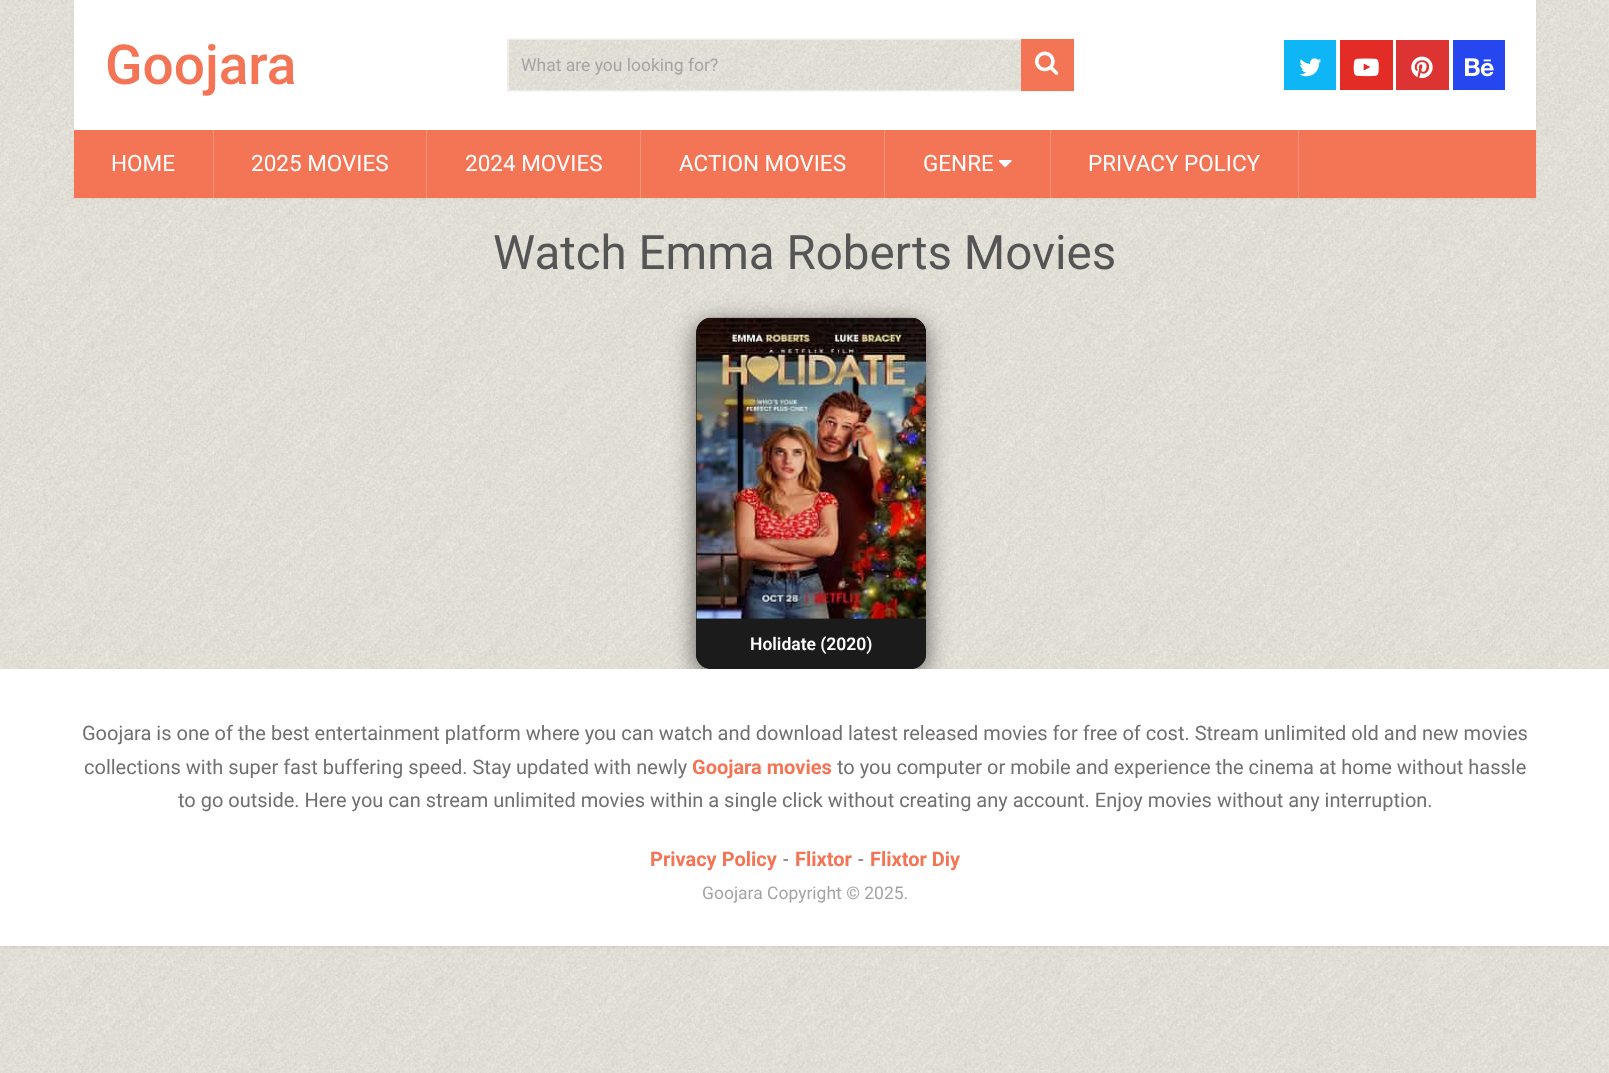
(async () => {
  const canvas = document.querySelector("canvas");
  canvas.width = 1609;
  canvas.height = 1073;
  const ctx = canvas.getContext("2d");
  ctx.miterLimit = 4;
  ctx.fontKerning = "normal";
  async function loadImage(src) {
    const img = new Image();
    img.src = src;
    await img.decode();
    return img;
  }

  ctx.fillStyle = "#ffffff";
  ctx.fillRect(0, 0, 1609, 1073);
  ctx.drawImage(await loadImage("img/1.png"), 0, 0, 1609, 1073);
  ctx.fillStyle = "rgba(0, 0, 0, 0.05)";
  ctx.filter = "blur(1px)";
  ctx.beginPath();
  ctx.rect(74, 1, 1462, 198);
  ctx.fill();
  ctx.filter = "none";
  ctx.fillStyle = "#ffffff";
  ctx.fillRect(74, 0, 1462, 130);
  ctx.drawImage(await loadImage("img/2.png"), 507, 38, 567, 54);
  ctx.strokeStyle = "#efebe7";
  ctx.strokeRect(508.5, 39.5, 565, 51);
  ctx.fillStyle = "#f47555";
  ctx.fillRect(1021, 39, 53, 52);
  ctx.drawImage(await loadImage("img/3.png"), 1035, 51, 24, 24);
  ctx.fillStyle = "#0eb6f6";
  ctx.fillRect(1284, 40, 52, 50);
  ctx.drawImage(await loadImage("img/4.png"), 1299, 58, 23, 19);
  ctx.fillStyle = "#e32c26";
  ctx.fillRect(1340, 40, 53, 50);
  ctx.drawImage(await loadImage("img/5.png"), 1353, 58, 26, 19);
  ctx.fillStyle = "#dd3333";
  ctx.fillRect(1396, 40, 53, 50);
  ctx.drawImage(await loadImage("img/6.png"), 1411, 56, 22, 22);
  ctx.fillStyle = "#2647ef";
  ctx.fillRect(1453, 40, 52, 50);
  ctx.drawImage(await loadImage("img/7.png"), 1465, 58, 29, 19);
  for (const [x, y, w, h, color] of [
    [74, 130, 1462, 68, "#f47555"],
    [213, 130, 1, 68, "#f6937a"],
    [426, 130, 1, 68, "#f6937a"],
    [640, 130, 1, 68, "#f6937a"],
    [884, 130, 1, 68, "#f6937a"],
    [1050, 130, 1, 68, "#f6937a"],
  ]) {
    ctx.fillStyle = color;
    ctx.fillRect(x, y, w, h);
  }
  ctx.drawImage(await loadImage("img/8.png"), 998, 160, 14, 8);
  ctx.fillRect(1298, 130, 1, 68);
  ctx.fillStyle = "rgba(0, 0, 0, 0.6)";
  ctx.filter = "blur(12.5px)";
  ctx.beginPath();
  ctx.roundRect(696, 324, 230, 351, 15);
  ctx.fill();
  ctx.filter = "none";
  ctx.fillStyle = "#1b1b1b";
  ctx.beginPath();
  ctx.roundRect(696, 318, 230, 351, 15);
  ctx.fill();
  ctx.drawImage(await loadImage("img/9.png"), 696, 317, 230, 302);
  ctx.beginPath();
  ctx.roundRect(696, 619, 230, 50, [0, 0, 15, 15]);
  ctx.fill();
  ctx.save();
  ctx.beginPath();
  ctx.roundRect(696, 318, 230, 351, 15);
  ctx.clip();
  ctx.beginPath();
  ctx.roundRect(696, 619, 230, 50, [0, 0, 15, 15]);
  ctx.clip();
  ctx.beginPath();
  ctx.roundRect(703, 626, 217, 50, [0, 0, 15, 15]);
  ctx.fill();
  ctx.restore();
  ctx.fillStyle = "rgba(0, 0, 0, 0.05)";
  ctx.filter = "blur(1px)";
  ctx.beginPath();
  ctx.rect(0, 670, 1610, 278);
  ctx.fill();
  ctx.filter = "none";
  ctx.fillStyle = "#ffffff";
  ctx.fillRect(0, 669, 1609, 277);
  ctx.font = "500 55px Roboto";
  ctx.fillStyle = "#f47555";
  ctx.fillText("Goojara", 105, 84);
  ctx.font = "17.5px Roboto";
  ctx.fillStyle = "#a4a4a4";
  ctx.fillText("What are you looking for?", 521, 71);
  ctx.font = "22.5px Roboto";
  ctx.fillStyle = "#ffffff";
  for (const [text, x, y] of [
    ["HOME", 111, 171],
    ["2025 MOVIES", 251, 171],
    ["2024 MOVIES", 465, 171],
    ["ACTION MOVIES", 679, 171],
    ["GENRE", 923, 171],
    ["PRIVACY POLICY", 1088, 171],
  ]) {
    ctx.fillText(text, x, y);
  }
  ctx.font = "47.5px Roboto";
  ctx.fillStyle = "#555555";
  ctx.fillText("Watch Emma Roberts Movies", 493, 269);
  ctx.font = "600 17.5px Roboto";
  ctx.fillStyle = "#ffffff";
  ctx.fillText("Holidate (2020)", 750, 650);
  ctx.font = "20px Roboto";
  ctx.fillStyle = "#707070";
  ctx.fillText("Goojara is one of the best entertainment platform where you can watch and download latest released movies for free of cost. Stream unlimited old and new movies", 82, 740);
  ctx.fillText("collections with super fast buffering speed. Stay updated with newly", 84, 774);
  ctx.font = "bold 20px Roboto";
  ctx.fillStyle = "#f47555";
  ctx.fillText("Goojara movies", 692, 774);
  ctx.font = "20px Roboto";
  ctx.fillStyle = "#707070";
  ctx.fillText("to you computer or mobile and experience the cinema at home without hassle", 837, 774);
  ctx.fillText("to go outside. Here you can stream unlimited movies within a single click without creating any account. Enjoy movies without any interruption.", 178, 807);
  ctx.font = "bold 20px Roboto";
  ctx.fillStyle = "#f47555";
  ctx.fillText("Privacy Policy", 650, 866);
  ctx.font = "20px Roboto";
  ctx.fillStyle = "#707070";
  ctx.fillText("-", 783, 866);
  ctx.font = "bold 20px Roboto";
  ctx.fillStyle = "#f47555";
  ctx.fillText("Flixtor", 795, 866);
  ctx.font = "20px Roboto";
  ctx.fillStyle = "#707070";
  ctx.fillText("-", 858, 866);
  ctx.font = "bold 20px Roboto";
  ctx.fillStyle = "#f47555";
  ctx.fillText("Flixtor Diy", 870, 866);
  ctx.font = "17.5px Roboto";
  ctx.fillStyle = "#a4a4a4";
  ctx.fillText("Goojara Copyright © 2025.", 702, 899);
})();
